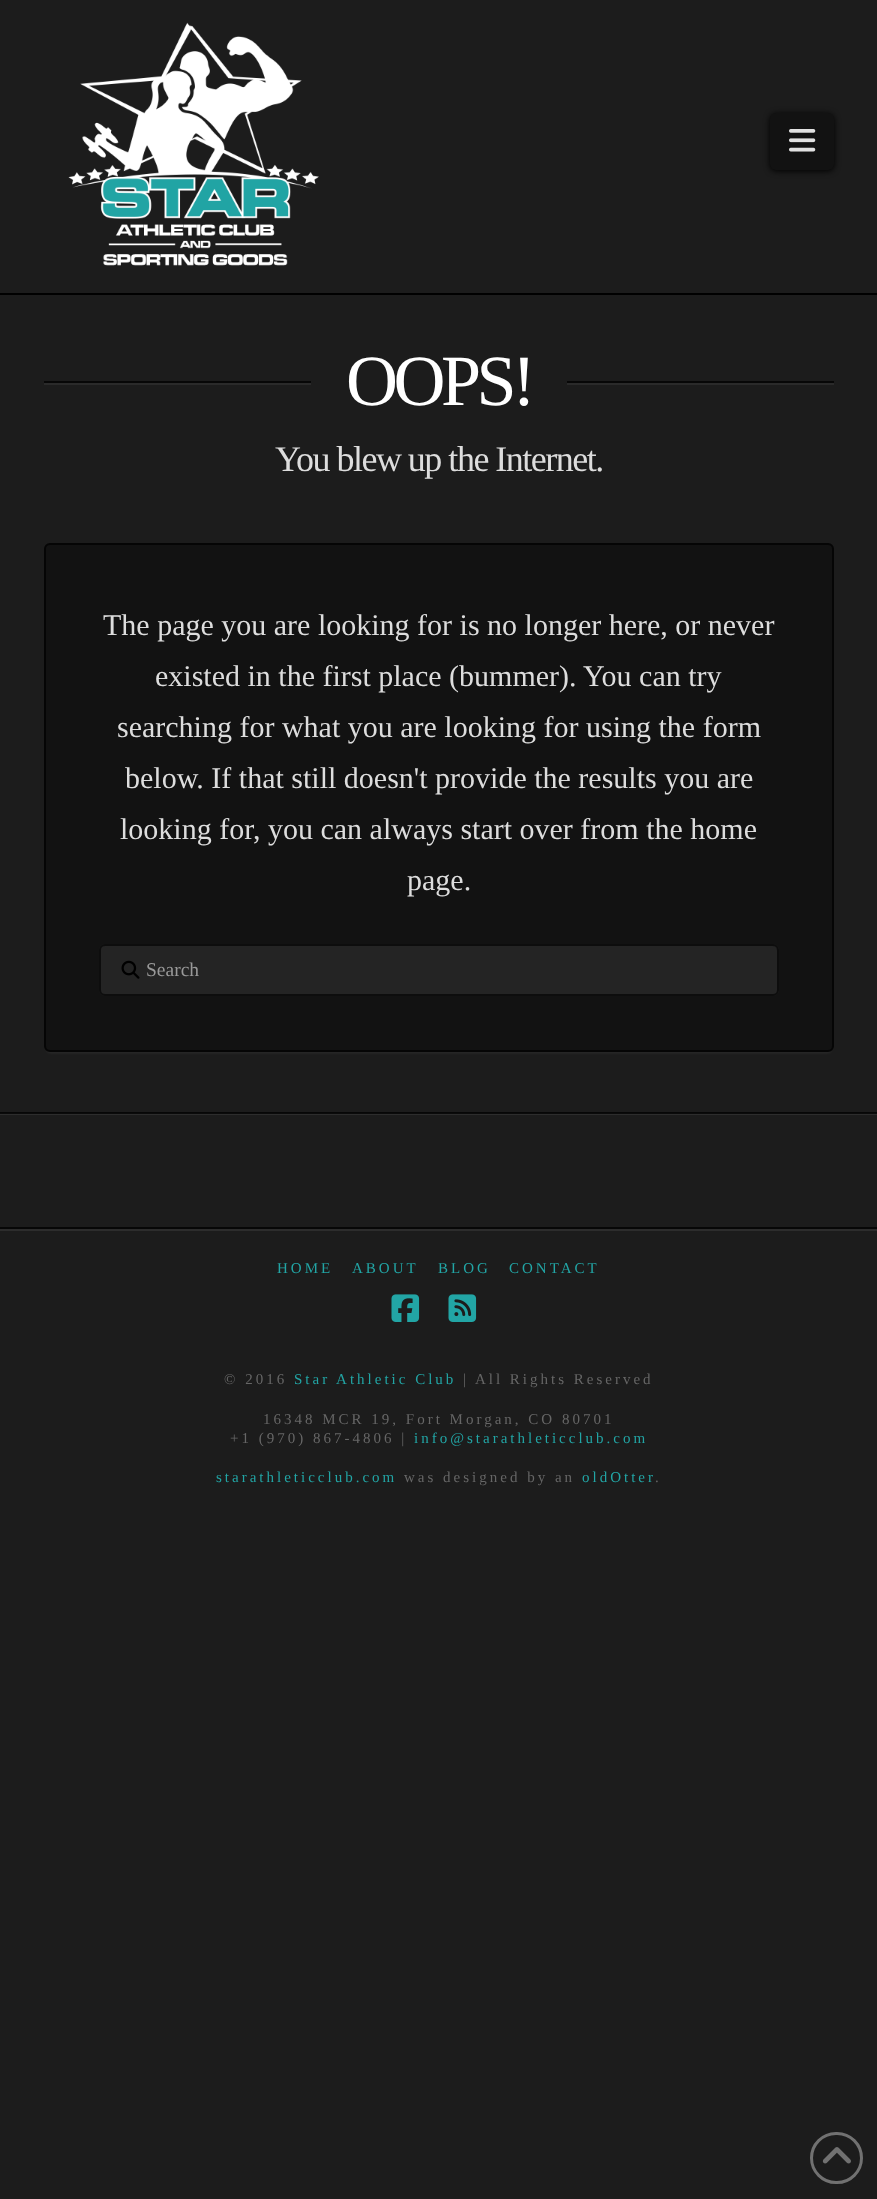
(async () => {
  const canvas = document.querySelector("canvas");
  canvas.width = 877;
  canvas.height = 2199;
  const ctx = canvas.getContext("2d");
  ctx.miterLimit = 4;
  ctx.fontKerning = "normal";
  async function loadImage(src) {
    const img = new Image();
    img.src = src;
    await img.decode();
    return img;
  }
  let path;

  ctx.fillStyle = "#1c1c1c";
  ctx.fillRect(0, 0, 877, 2199);
  ctx.fillStyle = "#000000";
  ctx.fillRect(0, 293, 877, 2);
  ctx.drawImage(await loadImage("img/1.png"), 68, 22, 251, 244);
  ctx.filter = "blur(3px)";
  ctx.beginPath();
  ctx.roundRect(770, 114, 64, 57, 6);
  ctx.fill();
  ctx.filter = "none";
  ctx.fillStyle = "#121212";
  ctx.beginPath();
  ctx.roundRect(770, 113, 64, 57, 6);
  ctx.fill();
  ctx.drawImage(await loadImage("img/2.png"), 789, 129, 27, 23);
  for (const [x, y, w, h, color] of [
    [44, 383, 267, 2, "#2a2a2a"],
    [44, 381, 267, 2, "#070707"],
    [567, 383, 267, 2, "#2a2a2a"],
    [567, 381, 267, 2, "#070707"],
  ]) {
    ctx.fillStyle = color;
    ctx.fillRect(x, y, w, h);
  }
  ctx.fillStyle = "rgba(255, 255, 255, 0.07)";
  ctx.filter = "blur(1.5px)";
  ctx.beginPath();
  ctx.roundRect(47, 551, 784, 502, 3);
  ctx.fill();
  ctx.filter = "none";
  ctx.fillStyle = "#121212";
  ctx.beginPath();
  ctx.roundRect(45, 544, 788, 507, 5);
  ctx.fill();
  ctx.strokeStyle = "#050505";
  ctx.lineWidth = 2;
  ctx.stroke();
  ctx.fillStyle = "#242424";
  ctx.beginPath();
  ctx.roundRect(99, 944, 680, 52, 6);
  ctx.fill();
  ctx.fillStyle = "#212121";
  path = new Path2D("M105 946H772C775 946 777 949 777 951V950C777 947 775 945 772 945H106C104 945 102 946 101 948C102 947 104 946 105 946Z");
  ctx.fill(path);
  ctx.beginPath();
  ctx.roundRect(100, 945, 678, 50, 5);
  ctx.strokeStyle = "#0d0d0d";
  ctx.stroke();
  ctx.drawImage(await loadImage("img/3.png"), 121, 960, 19, 19);
  for (const [x, y, w, h, color] of [
    [0, 1113, 877, 2, "#2d2d2d"],
    [0, 1112, 877, 2, "rgba(0, 0, 0, 0.75)"],
    [0, 1229, 877, 2, "#2d2d2d"],
    [0, 1227, 877, 2, "#070707"],
  ]) {
    ctx.fillStyle = color;
    ctx.fillRect(x, y, w, h);
  }
  ctx.drawImage(await loadImage("img/4.png"), 391, 1294, 29, 28);
  ctx.drawImage(await loadImage("img/5.png"), 448, 1294, 29, 28);
  ctx.beginPath();
  ctx.roundRect(811.5, 2133.5, 50, 49, 24.5);
  ctx.strokeStyle = "#717171";
  ctx.lineWidth = 3;
  ctx.stroke();
  ctx.drawImage(await loadImage("img/6.png"), 822, 2147, 29, 17);
  ctx.letterSpacing = "-4.5px";
  ctx.font = "72px Liberation Serif";
  ctx.fillStyle = "#ffffff";
  ctx.fillText("OOPS!", 346, 405);
  ctx.letterSpacing = "-1.5px";
  ctx.font = "36px Liberation Serif";
  ctx.fillStyle = "#dddddd";
  ctx.fillText("You blew up the Internet.", 275, 471);
  ctx.letterSpacing = "0px";
  ctx.font = "30px Liberation Serif";
  for (const [text, x, y] of [
    ["The page you are looking for is no longer here, or never", 103, 635],
    ["existed in the first place (bummer). You can try", 155, 686],
    ["searching for what you are looking for using the form", 117, 737],
    ["below. If that still doesn't provide the results you are", 125, 788],
    ["looking for, you can always start over from the home", 120, 839],
    ["page.", 407, 890],
  ]) {
    ctx.fillText(text, x, y);
  }
  ctx.font = "19.5px Liberation Serif";
  ctx.fillStyle = "#999999";
  ctx.fillText("Search", 146, 976);
  ctx.letterSpacing = "3px";
  ctx.font = "15px Liberation Serif";
  ctx.fillStyle = "#22a5a5";
  for (const [text, x, y] of [
    ["HOME", 277, 1273],
    ["ABOUT", 352, 1273],
    ["BLOG", 438, 1273],
    ["CONTACT", 509, 1273],
  ]) {
    ctx.fillText(text, x, y);
  }
  ctx.fillStyle = "#666666";
  ctx.fillText("© 2016", 224, 1384);
  ctx.fillStyle = "#22a5a5";
  ctx.fillText("Star Athletic Club", 294, 1384);
  ctx.fillStyle = "#666666";
  for (const [text, x, y] of [
    ["| All Rights Reserved", 463, 1384],
    ["16348 MCR 19, Fort Morgan, CO 80701", 263, 1424],
    ["+1 (970) 867-4806 |", 230, 1443],
  ]) {
    ctx.fillText(text, x, y);
  }
  ctx.fillStyle = "#22a5a5";
  ctx.fillText("info@starathleticclub.com", 414, 1443);
  ctx.fillText("starathleticclub.com", 216, 1482);
  ctx.fillStyle = "#666666";
  ctx.fillText("was designed by an", 404, 1482);
  ctx.fillStyle = "#22a5a5";
  ctx.fillText("oldOtter", 582, 1482);
  ctx.fillStyle = "#666666";
  ctx.fillText(".", 655, 1482);
})();
